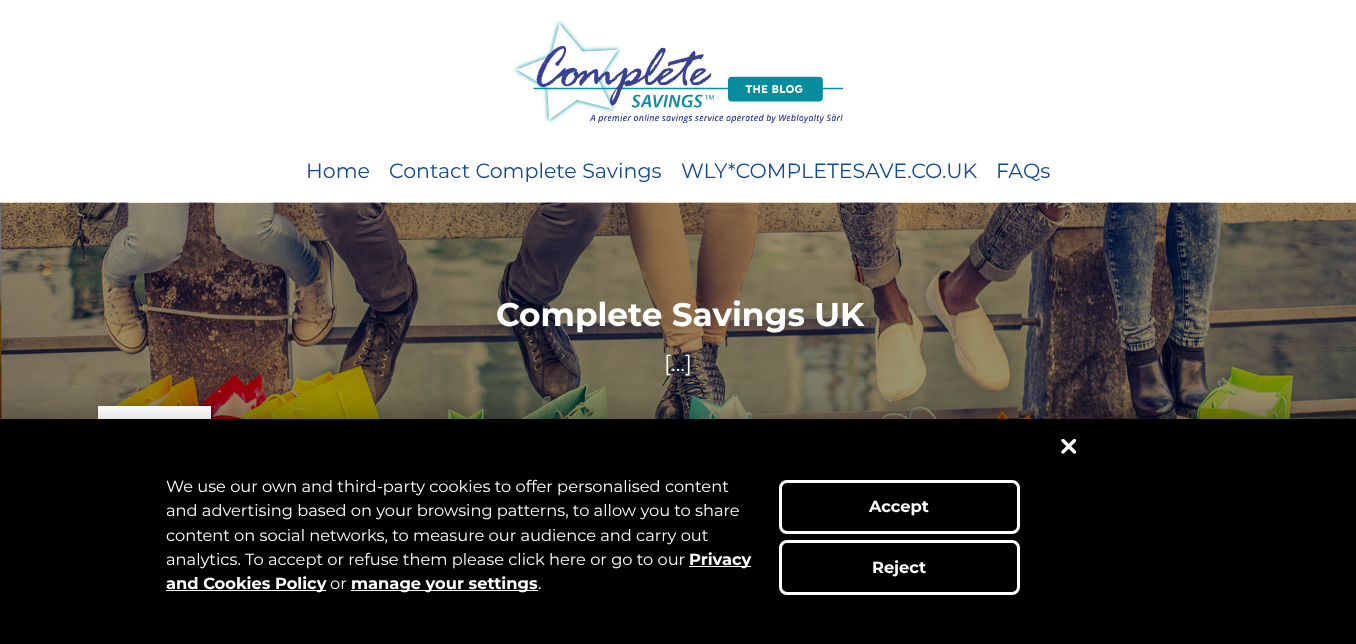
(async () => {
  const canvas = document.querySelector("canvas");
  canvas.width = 1356;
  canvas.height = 644;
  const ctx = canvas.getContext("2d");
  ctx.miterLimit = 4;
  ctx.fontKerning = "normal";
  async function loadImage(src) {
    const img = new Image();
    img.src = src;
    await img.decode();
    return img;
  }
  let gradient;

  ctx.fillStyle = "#ffffff";
  ctx.fillRect(0, 0, 1356, 644);
  ctx.drawImage(await loadImage("img/1.png"), 513, 20, 330, 104);
  ctx.drawImage(await loadImage("img/2.png"), 0, 202, 1356, 217);
  gradient = ctx.createLinearGradient(678, 202, 678, 584);
  gradient.addColorStop(0.5, "rgba(0, 0, 0, 0.4)");
  gradient.addColorStop(0.95, "rgba(0, 0, 0, 0.8)");
  ctx.fillStyle = gradient;
  ctx.fillRect(0, 203, 1356, 216);
  ctx.fillStyle = "rgba(0, 0, 0, 0.4)";
  ctx.filter = "blur(3px)";
  ctx.beginPath();
  ctx.rect(100, 409, 114, 49);
  ctx.fill();
  ctx.filter = "none";
  ctx.fillStyle = "#ffffff";
  ctx.fillRect(98, 406, 113, 13);
  ctx.fillStyle = "rgba(0, 0, 0, 0.2)";
  ctx.filter = "blur(11px)";
  ctx.beginPath();
  ctx.rect(0, 419, 1356, 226);
  ctx.fill();
  ctx.filter = "none";
  ctx.fillStyle = "#000000";
  ctx.fillRect(0, 419, 1356, 225);
  ctx.drawImage(await loadImage("img/3.png"), 1061, 439, 15, 15);
  for (const [x, y, w, h, color] of [
    [689, 566, 62, 1, "#ffffff"],
    [166, 590, 160, 1, "#ffffff"],
    [351, 590, 187, 1, "#ffffff"],
  ]) {
    ctx.fillStyle = color;
    ctx.fillRect(x, y, w, h);
  }
  ctx.beginPath();
  ctx.roundRect(780.5, 481.5, 238, 51, 6.5);
  ctx.strokeStyle = "#ffffff";
  ctx.lineWidth = 3;
  ctx.stroke();
  ctx.beginPath();
  ctx.roundRect(780.5, 541.5, 238, 52, 6.5);
  ctx.stroke();
  ctx.font = "20.6px Montserrat";
  ctx.fillStyle = "#15498f";
  for (const [text, x, y] of [
    ["Home", 306, 178],
    ["Contact Complete Savings", 389, 178],
    ["WLY*COMPLETESAVE.CO.UK", 681, 178],
    ["FAQs", 996, 178],
  ]) {
    ctx.fillText(text, x, y);
  }
  ctx.font = "bold 32.75px Montserrat";
  ctx.fillStyle = "#ffffff";
  ctx.fillText("Complete Savings UK", 496, 326);
  ctx.font = "22px Montserrat";
  ctx.fillText("[...]", 664, 371);
  ctx.font = "16.25px Montserrat";
  for (const [text, x, y] of [
    ["We use our own and third-party cookies to offer personalised content", 166, 492],
    ["and advertising based on your browsing patterns, to allow you to share", 166, 516],
    ["content on social networks, to measure our audience and carry out", 166, 541],
    ["analytics. To accept or refuse them please click here or go to our", 166, 565],
  ]) {
    ctx.fillText(text, x, y);
  }
  ctx.font = "bold 16.25px Montserrat";
  ctx.fillText("Privacy", 689, 565);
  ctx.fillText("and Cookies Policy", 166, 589);
  ctx.font = "16.25px Montserrat";
  ctx.fillText("or", 330, 589);
  ctx.font = "bold 16.25px Montserrat";
  ctx.fillText("manage your settings", 351, 589);
  ctx.font = "16.25px Montserrat";
  ctx.fillText(".", 538, 589);
  ctx.font = "bold 16.25px Montserrat";
  ctx.fillText("Accept", 869, 512);
  ctx.fillText("Reject", 872, 573);
})();
